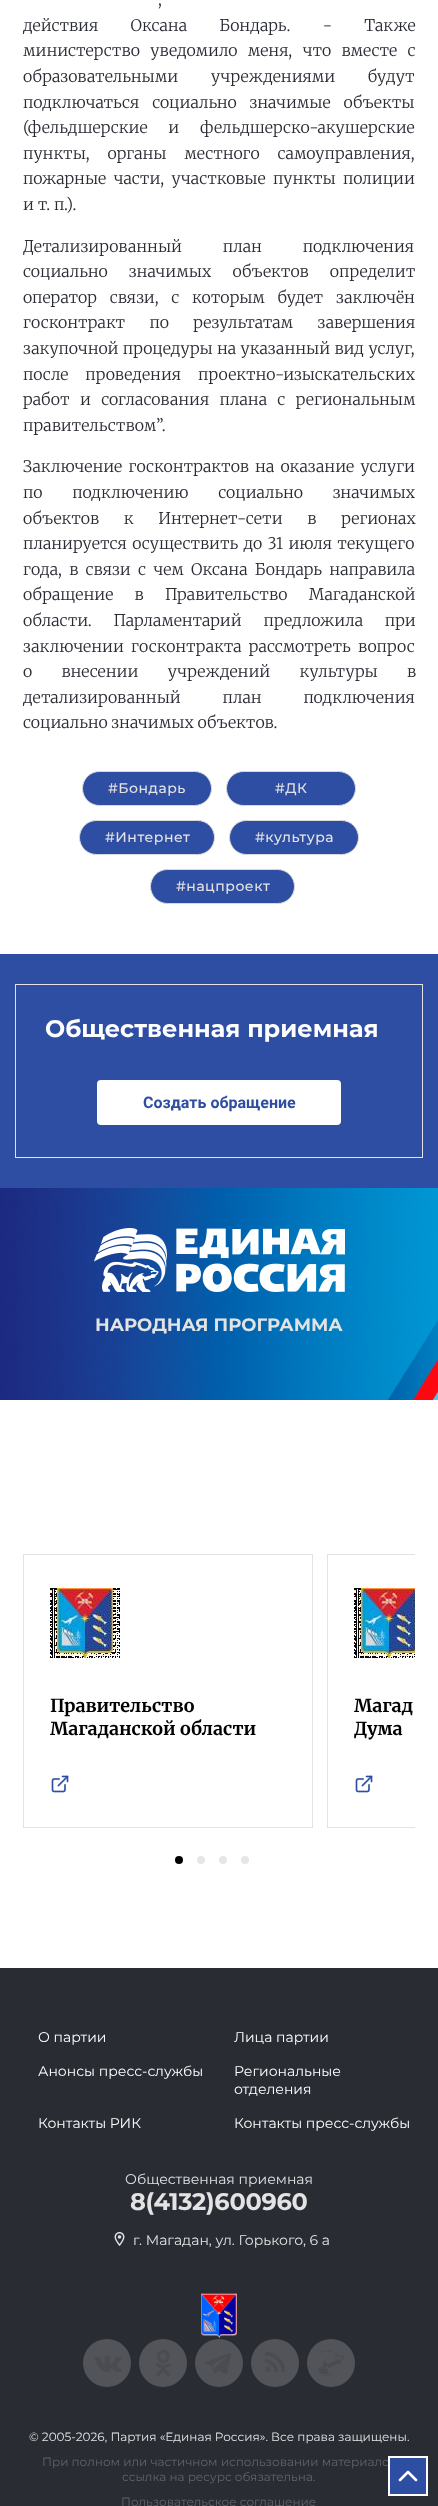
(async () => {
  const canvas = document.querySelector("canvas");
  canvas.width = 438;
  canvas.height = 2506;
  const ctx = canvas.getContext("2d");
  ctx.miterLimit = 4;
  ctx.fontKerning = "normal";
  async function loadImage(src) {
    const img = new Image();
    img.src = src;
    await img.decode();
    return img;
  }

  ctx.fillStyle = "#ffffff";
  ctx.fillRect(0, 0, 438, 2506);
  ctx.fillStyle = "#2e4ea4";
  ctx.beginPath();
  ctx.roundRect(82.5, 771.5, 129, 34, 17);
  ctx.fill();
  ctx.strokeStyle = "#dadada";
  ctx.stroke();
  ctx.beginPath();
  ctx.roundRect(226.5, 771.5, 129, 34, 17);
  ctx.fill();
  ctx.stroke();
  ctx.beginPath();
  ctx.roundRect(79.5, 820.5, 135, 34, 17);
  ctx.fill();
  ctx.stroke();
  ctx.beginPath();
  ctx.roundRect(229.5, 820.5, 129, 34, 17);
  ctx.fill();
  ctx.stroke();
  ctx.beginPath();
  ctx.roundRect(150.5, 869.5, 144, 34, 17);
  ctx.fill();
  ctx.stroke();
  ctx.fillRect(0, 954, 438, 234);
  ctx.strokeStyle = "#e3e3e3";
  ctx.strokeRect(15.5, 984.5, 407, 173);
  ctx.fillStyle = "#ffffff";
  ctx.beginPath();
  ctx.roundRect(97, 1080, 244, 45, 4);
  ctx.fill();
  ctx.drawImage(await loadImage("img/1.png"), 0, 1188, 438, 212);
  ctx.drawImage(await loadImage("img/2.png"), 94, 1228, 251, 64);
  ctx.strokeRect(23.5, 1554.5, 289, 273);
  ctx.drawImage(await loadImage("img/3.png"), 50, 1588, 70, 70);
  ctx.drawImage(await loadImage("img/4.png"), 51, 1775, 18, 18);
  ctx.save();
  ctx.beginPath();
  ctx.rect(23, 1554, 392, 274);
  ctx.clip();
  ctx.strokeRect(327.5, 1554.5, 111, 273);
  ctx.restore();
  ctx.drawImage(await loadImage("img/5.png"), 354, 1588, 61, 70);
  ctx.drawImage(await loadImage("img/4.png"), 355, 1775, 18, 18);
  ctx.fillStyle = "#000000";
  ctx.beginPath();
  ctx.arc(179, 1860, 4, 0, Math.PI * 2);
  ctx.fill();
  ctx.fillStyle = "#e6e6e6";
  ctx.beginPath();
  ctx.arc(201, 1860, 4, 0, Math.PI * 2);
  ctx.fill();
  ctx.beginPath();
  ctx.arc(223, 1860, 4, 0, Math.PI * 2);
  ctx.fill();
  ctx.beginPath();
  ctx.arc(245, 1860, 4, 0, Math.PI * 2);
  ctx.fill();
  ctx.fillStyle = "#2a2c34";
  ctx.fillRect(0, 1968, 438, 538);
  ctx.drawImage(await loadImage("img/6.png"), 114, 2232, 11, 14);
  ctx.drawImage(await loadImage("img/7.png"), 201, 2293, 36, 46);
  ctx.fillStyle = "#52545a";
  ctx.beginPath();
  ctx.arc(107, 2363, 24, 0, Math.PI * 2);
  ctx.fill();
  ctx.drawImage(await loadImage("img/8.png"), 94, 2356, 28, 16);
  ctx.beginPath();
  ctx.arc(163, 2363, 24, 0, Math.PI * 2);
  ctx.fill();
  ctx.drawImage(await loadImage("img/9.png"), 156, 2350, 15, 26);
  ctx.beginPath();
  ctx.arc(219, 2363, 24, 0, Math.PI * 2);
  ctx.fill();
  ctx.drawImage(await loadImage("img/10.png"), 205, 2353, 26, 21);
  ctx.beginPath();
  ctx.arc(275, 2363, 24, 0, Math.PI * 2);
  ctx.fill();
  ctx.drawImage(await loadImage("img/11.png"), 265, 2352, 20, 20);
  ctx.beginPath();
  ctx.arc(331, 2363, 24, 0, Math.PI * 2);
  ctx.fill();
  ctx.drawImage(await loadImage("img/12.png"), 319, 2350, 25, 26);
  ctx.wordSpacing = "9px";
  ctx.font = "300 16px Merriweather";
  ctx.fillStyle = "#2a2c34";
  ctx.fillText(",", 158, 5);
  ctx.wordSpacing = "28.5px";
  ctx.fillText("действия Оксана Бондарь. - Также", 23, 31);
  ctx.wordSpacing = "6.5px";
  ctx.fillText("министерство уведомило меня, что вместе с", 23, 56);
  ctx.wordSpacing = "29px";
  ctx.fillText("образовательными учреждениями будут", 23, 82);
  ctx.wordSpacing = "9px";
  ctx.fillText("подключаться социально значимые объекты", 23, 108);
  ctx.wordSpacing = "17px";
  ctx.fillText("(фельдшерские и фельдшерско-акушерские", 23, 133);
  ctx.wordSpacing = "14px";
  ctx.fillText("пункты, органы местного самоуправления,", 23, 159);
  ctx.wordSpacing = "3.5px";
  ctx.fillText("пожарные части, участковые пункты полиции", 23, 184);
  ctx.wordSpacing = "0px";
  ctx.fillText("и т. п.).", 23, 210);
  ctx.wordSpacing = "37px";
  ctx.fillText("Детализированный план подключения", 23, 252);
  ctx.wordSpacing = "17.5px";
  ctx.fillText("социально значимых объектов определит", 23, 277);
  ctx.wordSpacing = "9px";
  ctx.fillText("оператор связи, с которым будет заключён", 23, 303);
  ctx.wordSpacing = "20.5px";
  ctx.fillText("госконтракт по результатам завершения", 23, 328);
  ctx.wordSpacing = "0.5px";
  ctx.fillText("закупочной процедуры на указанный вид услуг,", 23, 354);
  ctx.wordSpacing = "13px";
  ctx.fillText("после проведения проектно-изыскательских", 23, 380);
  ctx.wordSpacing = "6.5px";
  ctx.fillText("работ и согласования плана с региональным", 23, 405);
  ctx.wordSpacing = "0px";
  ctx.fillText("правительством”.", 23, 431);
  ctx.wordSpacing = "2.5px";
  ctx.fillText("Заключение госконтрактов на оказание услуги", 23, 472);
  ctx.wordSpacing = "26px";
  ctx.fillText("по подключению социально значимых", 23, 498);
  ctx.wordSpacing = "21px";
  ctx.fillText("объектов к Интернет-сети в регионах", 23, 524);
  ctx.wordSpacing = "1.5px";
  ctx.fillText("планируется осуществить до 31 июля текущего", 23, 549);
  ctx.wordSpacing = "3.5px";
  ctx.fillText("года, в связи с чем Оксана Бондарь направила", 23, 575);
  ctx.wordSpacing = "17.5px";
  ctx.fillText("обращение в Правительство Магаданской", 23, 600);
  ctx.wordSpacing = "18px";
  ctx.fillText("области. Парламентарий предложила при", 23, 626);
  ctx.wordSpacing = "3.5px";
  ctx.fillText("заключении госконтракта рассмотреть вопрос", 23, 652);
  ctx.wordSpacing = "25.5px";
  ctx.fillText("о внесении учреждений культуры в", 23, 677);
  ctx.wordSpacing = "38px";
  ctx.fillText("детализированный план подключения", 23, 703);
  ctx.wordSpacing = "0px";
  ctx.fillText("социально значимых объектов.", 23, 728);
  ctx.letterSpacing = "0.5px";
  ctx.font = "500 14px Montserrat";
  ctx.fillStyle = "#e3e3e3";
  for (const [text, x, y] of [
    ["#Бондарь", 108, 793],
    ["#ДК", 275, 793],
    ["#Интернет", 105, 842],
    ["#культура", 255, 842],
    ["#нацпроект", 176, 891],
  ]) {
    ctx.fillText(text, x, y);
  }
  ctx.letterSpacing = "0px";
  ctx.font = "bold 24px Montserrat";
  ctx.fillStyle = "#ffffff";
  ctx.fillText("Общественная приемная", 45, 1037);
  ctx.font = "bold 16px Roboto";
  ctx.fillStyle = "#2e4ea4";
  ctx.fillText("Создать обращение", 143, 1108);
  ctx.font = "bold 18px Montserrat";
  ctx.fillStyle = "#e3e3e3";
  ctx.fillText("НАРОДНАЯ ПРОГРАММА", 95, 1331);
  ctx.font = "bold 18px Merriweather";
  ctx.fillStyle = "#000000";
  for (const [text, x, y] of [
    ["Правительство", 50, 1712],
    ["Магаданской области", 50, 1735],
    ["Магад", 354, 1712],
    ["Дума", 354, 1735],
  ]) {
    ctx.fillText(text, x, y);
  }
  ctx.font = "14px Montserrat";
  ctx.fillStyle = "#ffffff";
  for (const [text, x, y] of [
    ["О партии", 38, 2042],
    ["Лица партии", 234, 2042],
    ["Анонсы пресс-службы", 38, 2076],
    ["Региональные", 234, 2076],
    ["отделения", 234, 2094],
    ["Контакты РИК", 38, 2128],
    ["Контакты пресс-службы", 234, 2128],
  ]) {
    ctx.fillText(text, x, y);
  }
  ctx.fillStyle = "#e3e3e3";
  ctx.fillText("Общественная приемная", 125, 2184);
  ctx.letterSpacing = "-0.25px";
  ctx.font = "bold 24px Montserrat";
  ctx.fillText("8(4132)600960", 130, 2210);
  ctx.letterSpacing = "0px";
  ctx.font = "14px Montserrat";
  ctx.fillText("г. Магадан, ул. Горького, 6 а", 133, 2245);
  ctx.font = "12px Montserrat";
  ctx.fillText("© 2005-2026, Партия «Единая Россия». Все права защищены.", 29, 2441);
  ctx.fillStyle = "#626369";
  for (const [text, x, y] of [
    ["При полном или частичном использовании материало", 42, 2466],
    ["ссылка на ресурс обязательна.", 122, 2481],
    ["Пользовательское соглашение", 121, 2506],
  ]) {
    ctx.fillText(text, x, y);
  }
  ctx.fillStyle = "#2e4ea4";
  ctx.beginPath();
  ctx.rect(389, 2457, 38, 38);
  ctx.fill();
  ctx.strokeStyle = "#ffffff";
  ctx.lineWidth = 2;
  ctx.stroke();
  ctx.drawImage(await loadImage("img/13.png"), 398, 2470, 20, 12);
})();
